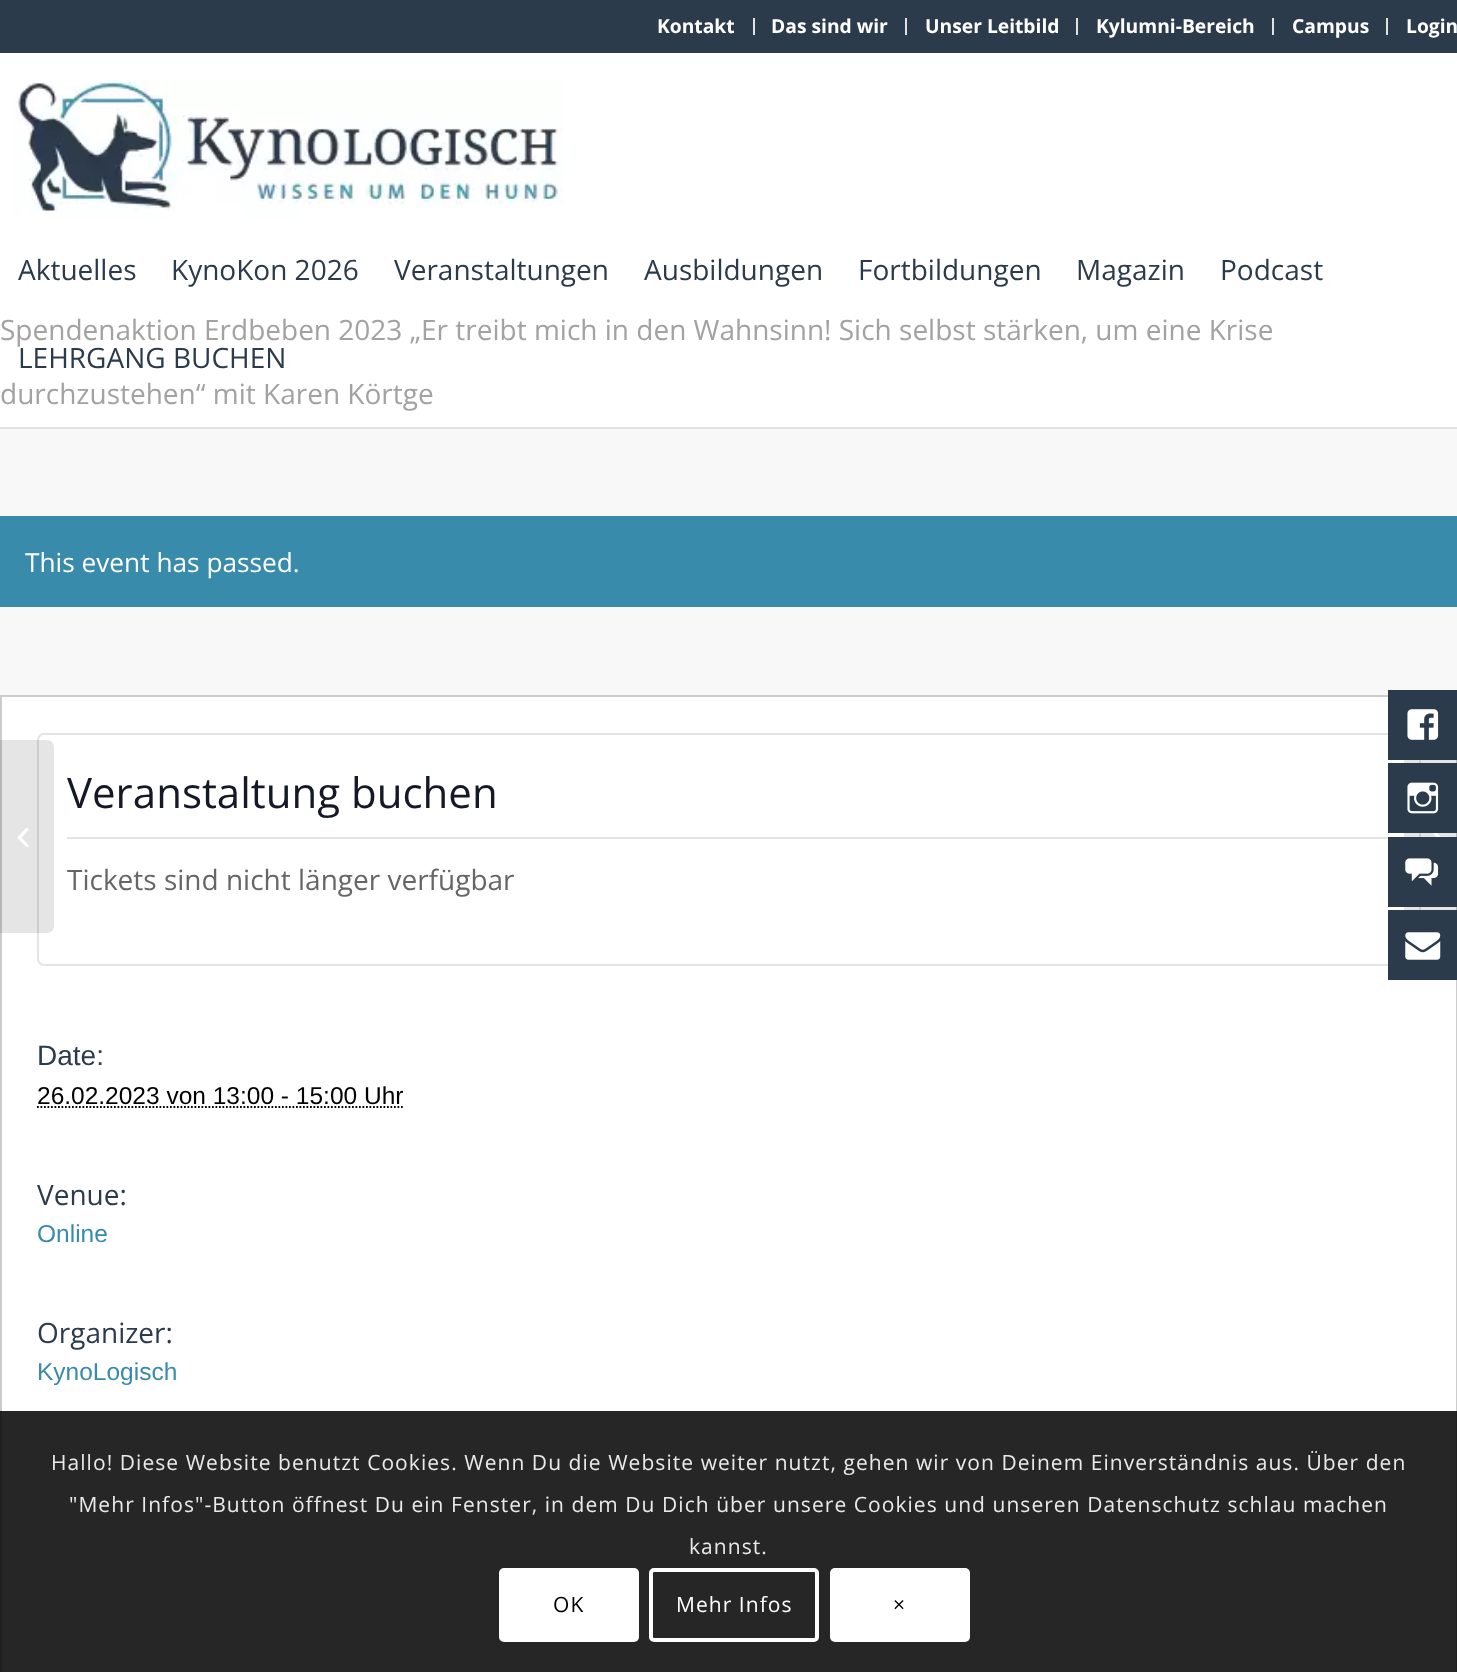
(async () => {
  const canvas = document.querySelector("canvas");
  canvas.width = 1457;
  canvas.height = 1672;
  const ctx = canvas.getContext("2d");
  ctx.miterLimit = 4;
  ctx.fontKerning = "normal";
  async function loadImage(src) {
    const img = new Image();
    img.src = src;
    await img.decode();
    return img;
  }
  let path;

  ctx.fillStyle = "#ffffff";
  ctx.fillRect(0, 0, 1457, 1672);
  for (const [x, y, w, h, color] of [
    [0, 0, 1457, 53, "#2b3b4c"],
    [753, 18, 2, 17, "#e1e1e1"],
    [905, 18, 2, 17, "#e1e1e1"],
    [1076, 18, 2, 17, "#e1e1e1"],
    [1272, 18, 2, 17, "#e1e1e1"],
    [1386, 18, 2, 17, "#e1e1e1"],
  ]) {
    ctx.fillStyle = color;
    ctx.fillRect(x, y, w, h);
  }
  ctx.drawImage(await loadImage("img/1.png"), 14, 80, 549, 138);
  for (const [x, y, w, h, color] of [
    [0, 429, 1457, 266, "#f8f8f8"],
    [0, 427, 1457, 2, "#e1e1e1"],
    [0, 516, 1457, 91, "#398bab"],
  ]) {
    ctx.fillStyle = color;
    ctx.fillRect(x, y, w, h);
  }
  ctx.strokeStyle = "#cccccc";
  ctx.lineWidth = 2;
  ctx.strokeRect(1, 696, 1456, 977);
  ctx.beginPath();
  ctx.roundRect(38, 734, 1382, 231, 6);
  ctx.strokeStyle = "#e4e4e4";
  ctx.stroke();
  ctx.fillStyle = "#e4e4e4";
  ctx.fillRect(67, 837, 1324, 2);
  path = new Path2D("M37 1107H403");
  ctx.strokeStyle = "#000000";
  ctx.lineWidth = 1.8;
  ctx.setLineDash([1.75, 1.75]);
  ctx.stroke(path);
  ctx.fillStyle = "rgba(0, 0, 0, 0.1)";
  ctx.beginPath();
  ctx.roundRect(0, 740, 54, 193, [0, 7, 7, 0]);
  ctx.fill();
  ctx.drawImage(await loadImage("img/2.png"), 17, 828, 12, 19);
  ctx.fillRect(1404, 760, 53, 150);
  ctx.drawImage(await loadImage("img/3.png"), 1432, 833, 9, 4);
  ctx.fillStyle = "#2b3b4c";
  ctx.fillRect(1388, 690, 69, 70);
  ctx.drawImage(await loadImage("img/4.png"), 1407, 709, 32, 31);
  ctx.fillRect(1388, 763, 69, 70);
  ctx.drawImage(await loadImage("img/5.png"), 1407, 782, 32, 32);
  ctx.fillRect(1388, 837, 69, 70);
  ctx.drawImage(await loadImage("img/6.png"), 1405, 858, 34, 28);
  ctx.fillRect(1388, 910, 69, 70);
  ctx.drawImage(await loadImage("img/7.png"), 1405, 932, 36, 28);
  ctx.fillStyle = "rgba(0, 0, 0, 0.85)";
  ctx.fillRect(0, 1411, 1457, 261);
  ctx.fillStyle = "#ffffff";
  ctx.beginPath();
  ctx.roundRect(499, 1568, 140, 74, 5);
  ctx.fill();
  ctx.beginPath();
  ctx.roundRect(651, 1570, 166, 70, 3);
  ctx.strokeStyle = "#ffffff";
  ctx.lineWidth = 4;
  ctx.setLineDash([]);
  ctx.stroke();
  ctx.beginPath();
  ctx.roundRect(830, 1568, 140, 74, 5);
  ctx.fill();
  ctx.font = "bold 19.25px Open Sans";
  for (const [text, x, y] of [
    ["Kontakt", 657, 33],
    ["Das sind wir", 771, 33],
    ["Unser Leitbild", 925, 33],
    ["Kylumni-Bereich", 1096, 33],
    ["Campus", 1292, 33],
    ["Login", 1406, 33],
  ]) {
    ctx.fillText(text, x, y);
  }
  ctx.font = "28px Open Sans";
  ctx.fillStyle = "#2b3b4c";
  for (const [text, x, y] of [
    ["Aktuelles", 18, 280],
    ["KynoKon 2026", 171, 280],
    ["Veranstaltungen", 394, 280],
    ["Ausbildungen", 644, 280],
    ["Fortbildungen", 858, 280],
    ["Magazin", 1076, 280],
    ["Podcast", 1220, 280],
    ["LEHRGANG BUCHEN", 18, 368],
  ]) {
    ctx.fillText(text, x, y);
  }
  ctx.font = "28px 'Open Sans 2'";
  ctx.fillStyle = "#a2a2a2";
  ctx.fillText("Spendenaktion Erdbeben 2023 „Er treibt mich in den Wahnsinn! Sich selbst stärken, um eine Krise", 0, 340);
  ctx.fillText("durchzustehen“ mit Karen Körtge", 0, 404);
  ctx.font = "26.25px Open Sans";
  ctx.fillStyle = "#ffffff";
  ctx.fillText("This event has passed.", 25, 572);
  ctx.font = "42px Open Sans";
  ctx.fillStyle = "#141827";
  ctx.fillText("Veranstaltung buchen", 67, 808);
  ctx.font = "28px Open Sans";
  ctx.fillStyle = "#666666";
  ctx.fillText("Tickets sind nicht länger verfügbar", 67, 890);
  ctx.font = "28px Liberation Sans";
  ctx.fillStyle = "#2b3b4c";
  ctx.fillText("Date:", 37, 1065);
  ctx.font = "24.5px Liberation Sans";
  ctx.fillStyle = "#000000";
  ctx.fillText("26.02.2023 von 13:00 - 15:00 Uhr", 37, 1104);
  ctx.font = "28px 'Open Sans 2'";
  ctx.fillStyle = "#2b3b4c";
  ctx.fillText("Venue:", 37, 1205);
  ctx.font = "24.5px Liberation Sans";
  ctx.fillStyle = "#398bab";
  ctx.fillText("Online", 37, 1242);
  ctx.font = "28px 'Open Sans 2'";
  ctx.fillStyle = "#2b3b4c";
  ctx.fillText("Organizer:", 37, 1343);
  ctx.font = "24.5px Liberation Sans";
  ctx.fillStyle = "#398bab";
  ctx.fillText("KynoLogisch", 37, 1380);
  ctx.letterSpacing = "1.05px";
  ctx.font = "21px Open Sans";
  ctx.fillStyle = "#e9e9e9";
  for (const [text, x, y] of [
    ["Hallo! Diese Website benutzt Cookies. Wenn Du die Website weiter nutzt, gehen wir von Deinem Einverständnis aus. Über den", 51, 1470],
    ["\"Mehr Infos\"-Button öffnest Du ein Fenster, in dem Du Dich über unsere Cookies und unseren Datenschutz schlau machen", 69, 1512],
    ["kannst.", 689, 1554],
  ]) {
    ctx.fillText(text, x, y);
  }
  ctx.fillStyle = "#000000";
  ctx.fillText("OK", 553, 1612);
  ctx.fillStyle = "#ffffff";
  ctx.fillText("Mehr Infos", 676, 1612);
  ctx.fillStyle = "#000000";
  ctx.fillText("×", 893, 1612);
})();
